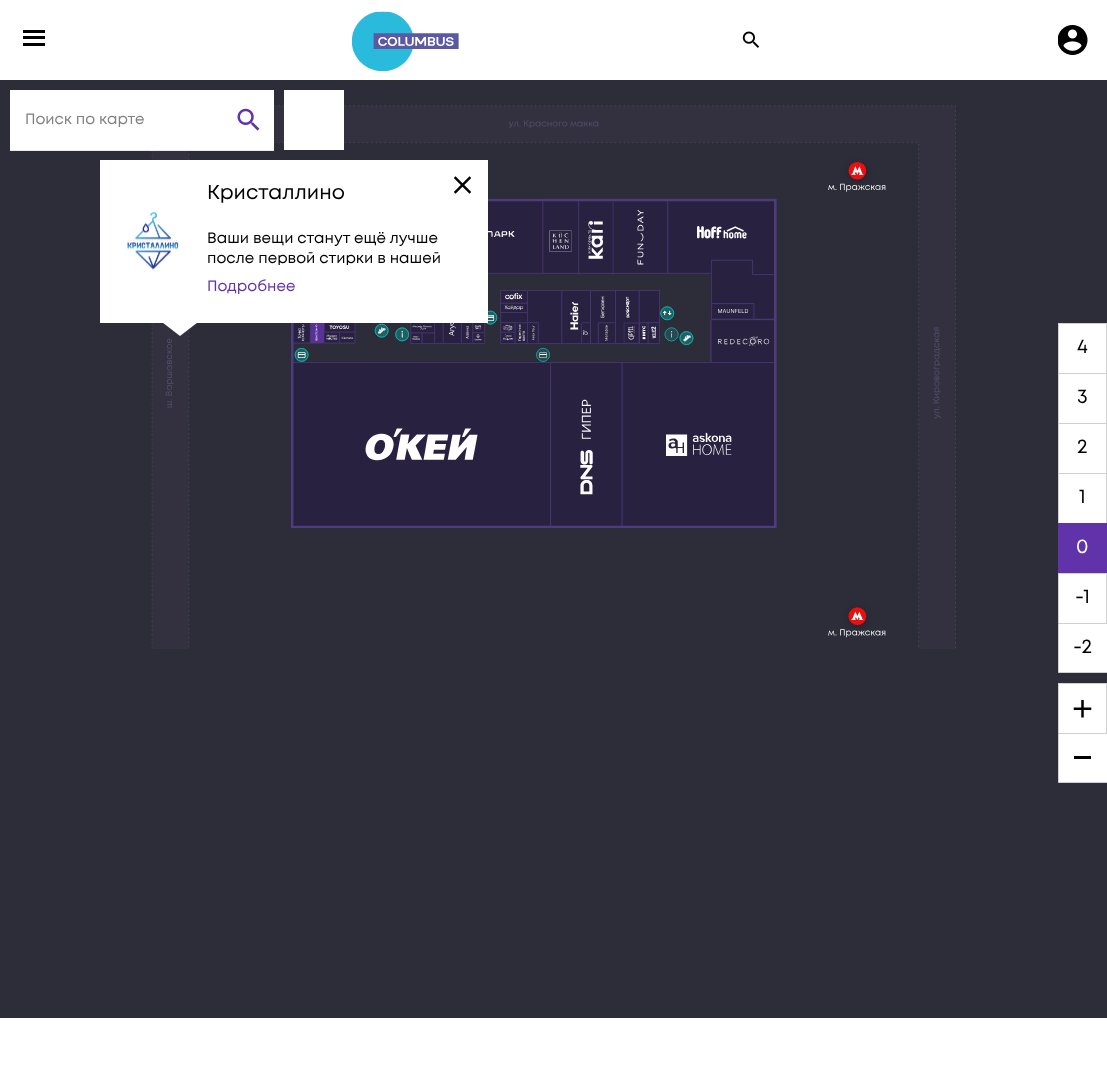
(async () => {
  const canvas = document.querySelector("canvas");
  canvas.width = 1107;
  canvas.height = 1076;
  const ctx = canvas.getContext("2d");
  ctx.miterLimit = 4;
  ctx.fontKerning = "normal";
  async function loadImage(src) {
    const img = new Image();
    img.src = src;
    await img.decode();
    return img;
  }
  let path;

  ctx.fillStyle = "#ffffff";
  ctx.fillRect(0, 0, 1107, 1076);
  for (const [x, y, w, h, color] of [
    [23, 30, 22, 3, "#000000"],
    [23, 36, 22, 3, "#000000"],
    [23, 43, 22, 3, "#000000"],
  ]) {
    ctx.fillStyle = color;
    ctx.fillRect(x, y, w, h);
  }
  ctx.drawImage(await loadImage("img/1.png"), 352, 11, 107, 60);
  ctx.drawImage(await loadImage("img/2.png"), 742, 31, 18, 17);
  ctx.drawImage(await loadImage("img/3.png"), 1058, 25, 30, 30);
  ctx.fillStyle = "#2d2c39";
  ctx.fillRect(0, 80, 1107, 938);
  ctx.drawImage(await loadImage("img/7.png"), 151, 105, 805, 544);
  ctx.fillStyle = "#eaeae9";
  ctx.fillRect(10, 150, 264, 1);
  ctx.fillStyle = "#ffffff";
  ctx.fillRect(10, 90, 264, 60);
  ctx.drawImage(await loadImage("img/4.png"), 237, 108, 23, 23);
  ctx.fillRect(284, 90, 60, 60);
  ctx.drawImage(await loadImage("img/8.png"), 291, 198, 486, 330);
  ctx.fillRect(100, 160, 388, 163);
  ctx.drawImage(await loadImage("img/5.png"), 127, 212, 52, 58);
  ctx.drawImage(await loadImage("img/6.png"), 454, 176, 17, 18);
  path = new Path2D("M162.5 322.5H197.5L180 336Z");
  ctx.fill(path);
  for (const [x, y, w, h, color] of [
    [1059, 324, 47, 49, "#ffffff"],
    [1058, 323, 49, 1, "#d0d0d0"],
    [1106, 323, 1, 50, "#d0d0d0"],
    [1058, 323, 1, 50, "#d0d0d0"],
    [1059, 374, 47, 49, "#ffffff"],
    [1058, 373, 49, 1, "#d0d0d0"],
    [1106, 373, 1, 50, "#d0d0d0"],
    [1058, 373, 1, 50, "#d0d0d0"],
    [1059, 424, 47, 49, "#ffffff"],
    [1058, 423, 49, 1, "#d0d0d0"],
    [1106, 423, 1, 50, "#d0d0d0"],
    [1058, 423, 1, 50, "#d0d0d0"],
    [1059, 474, 47, 49, "#ffffff"],
    [1058, 473, 49, 1, "#d0d0d0"],
    [1106, 473, 1, 50, "#d0d0d0"],
    [1058, 473, 1, 50, "#d0d0d0"],
    [1058, 523, 49, 50, "#6033ab"],
    [1059, 574, 47, 49, "#ffffff"],
    [1058, 573, 49, 1, "#d0d0d0"],
    [1106, 573, 1, 50, "#d0d0d0"],
    [1058, 573, 1, 50, "#d0d0d0"],
  ]) {
    ctx.fillStyle = color;
    ctx.fillRect(x, y, w, h);
  }
  ctx.fillStyle = "#ffffff";
  ctx.beginPath();
  ctx.rect(1058.5, 623.5, 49, 49);
  ctx.fill();
  ctx.strokeStyle = "#d0d0d0";
  ctx.stroke();
  for (const [x, y, w, h, color] of [
    [1059, 684, 47, 49, "#ffffff"],
    [1058, 683, 49, 1, "#d0d0d0"],
    [1106, 683, 1, 50, "#d0d0d0"],
    [1058, 683, 1, 50, "#d0d0d0"],
  ]) {
    ctx.fillStyle = color;
    ctx.fillRect(x, y, w, h);
  }
  ctx.drawImage(await loadImage("img/9.png"), 1073, 700, 19, 18);
  ctx.fillStyle = "#ffffff";
  ctx.beginPath();
  ctx.rect(1058.5, 733.5, 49, 49);
  ctx.fill();
  ctx.stroke();
  ctx.fillStyle = "#000000";
  ctx.fillRect(1074, 756, 17, 3);
  ctx.font = "15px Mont";
  ctx.fillStyle = "#808080";
  ctx.fillText("Поиск по карте", 25, 124);
  ctx.font = "20px Mont";
  ctx.fillStyle = "#000000";
  ctx.fillText("Кристаллино", 207, 199);
  ctx.font = "15px Mont";
  ctx.fillText("Ваши вещи станут ещё лучше", 207, 243);
  ctx.save();
  ctx.beginPath();
  ctx.rect(206, 230, 262, 35);
  ctx.clip();
  ctx.fillText("после первой стирки в нашей", 207, 263);
  ctx.restore();
  ctx.fillStyle = "#6033ab";
  ctx.fillText("Подробнее", 207, 291);
  ctx.font = "20px Mont";
  ctx.fillStyle = "#000000";
  for (const [text, x, y] of [
    ["4", 1077, 353],
    ["3", 1077, 403],
    ["2", 1077, 453],
    ["1", 1079, 503],
  ]) {
    ctx.fillText(text, x, y);
  }
  ctx.fillStyle = "#ffffff";
  ctx.fillText("0", 1076, 553);
  ctx.fillStyle = "#000000";
  ctx.fillText("-1", 1075, 603);
  ctx.fillText("-2", 1073, 653);
})();
